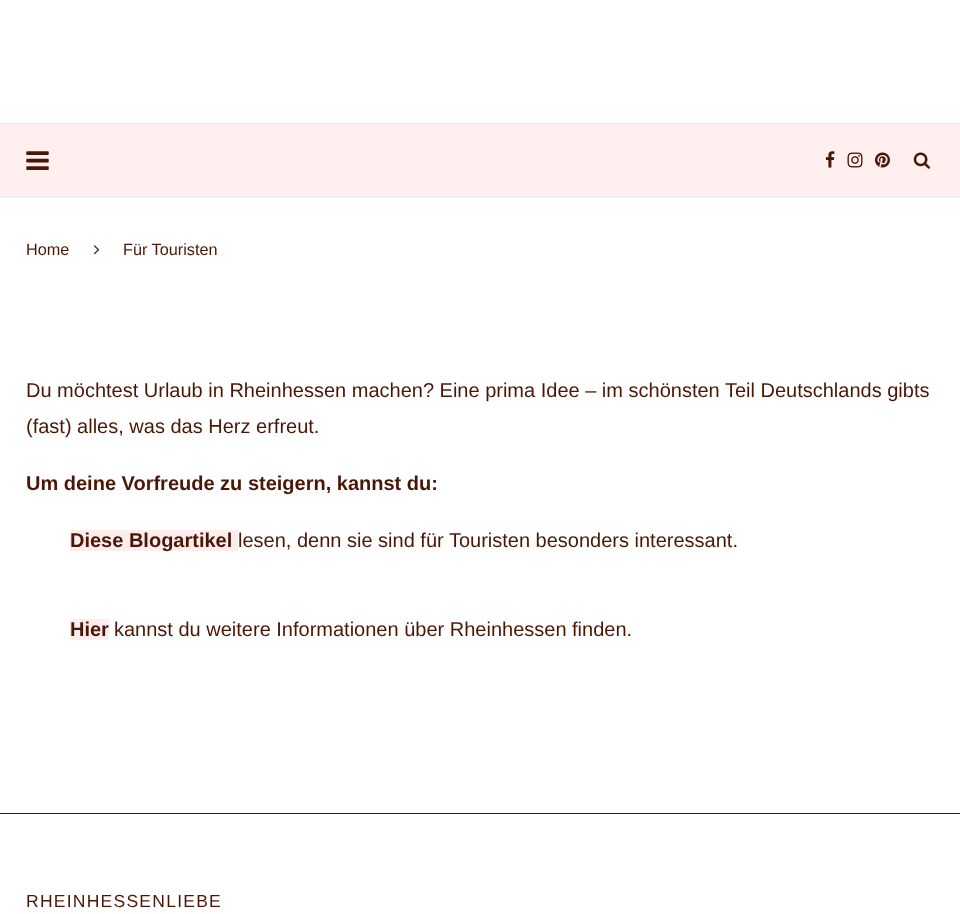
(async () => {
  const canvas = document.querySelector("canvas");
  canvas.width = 960;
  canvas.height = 914;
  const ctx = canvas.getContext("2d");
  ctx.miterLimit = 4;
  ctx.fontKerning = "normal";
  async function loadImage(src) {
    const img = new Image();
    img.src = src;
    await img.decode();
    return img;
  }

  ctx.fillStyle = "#ffffff";
  ctx.fillRect(0, 0, 960, 914);
  for (const [x, y, w, h, color] of [
    [0, 124, 960, 74, "#ffefef"],
    [0, 123, 960, 1, "#ececec"],
    [0, 196, 960, 1, "#ececec"],
  ]) {
    ctx.fillStyle = color;
    ctx.fillRect(x, y, w, h);
  }
  ctx.drawImage(await loadImage("img/1.png"), 26, 151, 23, 19);
  ctx.drawImage(await loadImage("img/2.png"), 825, 151, 10, 17);
  ctx.drawImage(await loadImage("img/3.png"), 847, 152, 16, 16);
  ctx.drawImage(await loadImage("img/4.png"), 875, 152, 15, 16);
  ctx.drawImage(await loadImage("img/5.png"), 913, 152, 17, 17);
  ctx.drawImage(await loadImage("img/6.png"), 93, 245, 7, 10);
  for (const [x, y, w, h, color] of [
    [70, 530, 168, 21, "#ffeded"],
    [70, 619, 39, 21, "#ffeded"],
    [0, 813, 960, 1, "#491705"],
  ]) {
    ctx.fillStyle = color;
    ctx.fillRect(x, y, w, h);
  }
  ctx.font = "16.25px Liberation Sans";
  ctx.fillText("Home", 26, 255);
  ctx.fillText("Für Touristen", 123, 255);
  ctx.font = "20px Liberation Sans";
  ctx.fillText("Du möchtest Urlaub in Rheinhessen machen? Eine prima Idee – im schönsten Teil Deutschlands gibts", 26, 397);
  ctx.fillText("(fast) alles, was das Herz erfreut.", 26, 433);
  ctx.font = "bold 20px Liberation Sans";
  ctx.fillText("Um deine Vorfreude zu steigern, kannst du:", 26, 490);
  ctx.fillText("Diese Blogartikel", 70, 547);
  ctx.font = "20px Liberation Sans";
  ctx.fillText("lesen, denn sie sind für Touristen besonders interessant.", 238, 547);
  ctx.font = "bold 20px Liberation Sans";
  ctx.fillText("Hier", 70, 636);
  ctx.font = "20px Liberation Sans";
  ctx.fillText("kannst du weitere Informationen über Rheinhessen finden.", 114, 636);
  ctx.letterSpacing = "1.25px";
  ctx.font = "17.5px Liberation Sans";
  ctx.fillText("RHEINHESSENLIEBE", 26, 907);
})();
